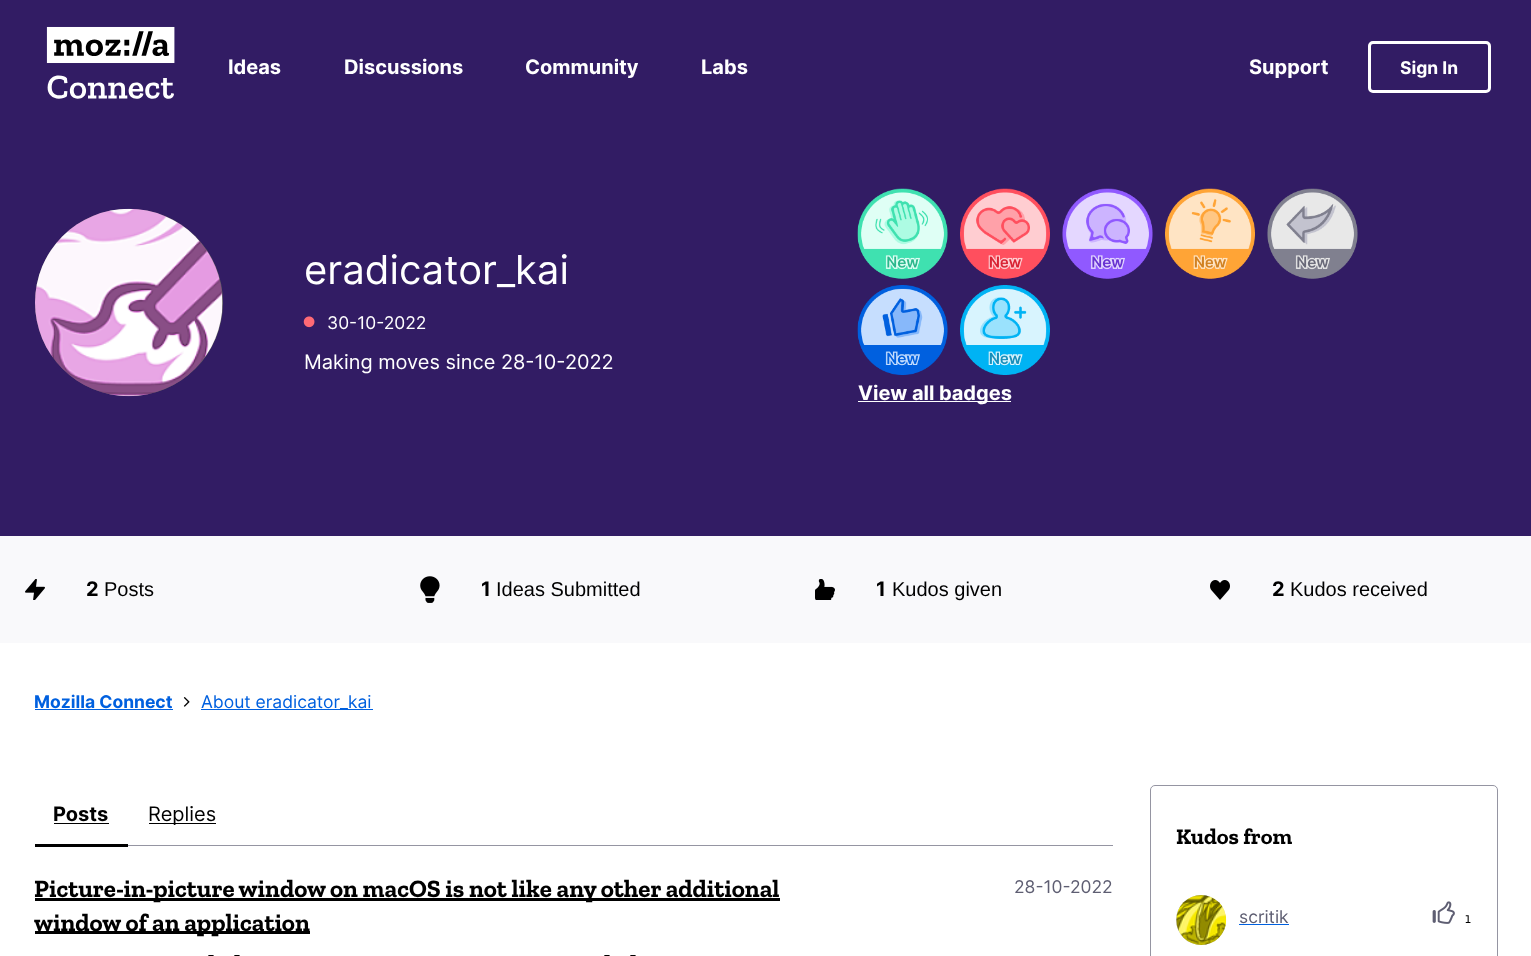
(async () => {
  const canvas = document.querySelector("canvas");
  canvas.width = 1531;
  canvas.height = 956;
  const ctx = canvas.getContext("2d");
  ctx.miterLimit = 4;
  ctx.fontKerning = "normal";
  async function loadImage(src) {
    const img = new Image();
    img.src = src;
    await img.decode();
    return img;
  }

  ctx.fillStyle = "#ffffff";
  ctx.fillRect(0, 0, 1531, 956);
  ctx.fillStyle = "#321c64";
  ctx.fillRect(0, 0, 1531, 536);
  ctx.drawImage(await loadImage("img/1.png"), 46, 26, 129, 73);
  ctx.beginPath();
  ctx.roundRect(1369.5, 42.5, 120, 49, 3.5);
  ctx.strokeStyle = "#ffffff";
  ctx.lineWidth = 3;
  ctx.stroke();
  ctx.fillStyle = "#5d5d5d";
  ctx.beginPath();
  ctx.roundRect(35, 209, 188, 187, 93.5);
  ctx.fill();
  ctx.drawImage(await loadImage("img/2.png"), 35, 208, 188, 189);
  ctx.drawImage(await loadImage("img/3.png"), 303, 316, 12, 12);
  ctx.drawImage(await loadImage("img/4.png"), 857, 188, 91, 91);
  ctx.drawImage(await loadImage("img/5.png"), 960, 188, 90, 91);
  ctx.drawImage(await loadImage("img/6.png"), 1062, 188, 91, 91);
  ctx.drawImage(await loadImage("img/7.png"), 1165, 188, 90, 91);
  ctx.drawImage(await loadImage("img/8.png"), 1267, 188, 91, 91);
  ctx.drawImage(await loadImage("img/9.png"), 857, 285, 91, 90);
  ctx.drawImage(await loadImage("img/10.png"), 960, 285, 90, 90);
  ctx.fillStyle = "#ffffff";
  ctx.fillRect(858, 401, 153, 1);
  ctx.fillStyle = "#f9f9fb";
  ctx.fillRect(0, 536, 1531, 107);
  ctx.drawImage(await loadImage("img/11.png"), 25, 579, 20, 21);
  ctx.drawImage(await loadImage("img/12.png"), 420, 576, 20, 27);
  ctx.drawImage(await loadImage("img/13.png"), 815, 579, 20, 21);
  ctx.drawImage(await loadImage("img/14.png"), 1210, 580, 20, 20);
  ctx.fillStyle = "#0060df";
  ctx.fillRect(35, 709, 138, 1);
  ctx.drawImage(await loadImage("img/15.png"), 183, 697, 7, 10);
  for (const [x, y, w, h, color] of [
    [201, 709, 172, 1, "#0060df"],
    [128, 845, 985, 1, "#9595a2"],
    [35, 844, 93, 3, "#000000"],
    [54, 823, 55, 1, "#000000"],
    [149, 823, 67, 1, "#000000"],
    [35, 898, 745, 3, "#000000"],
    [35, 931, 275, 3, "#000000"],
  ]) {
    ctx.fillStyle = color;
    ctx.fillRect(x, y, w, h);
  }
  ctx.beginPath();
  ctx.roundRect(1150.5, 785.5, 347, 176, 4.5);
  ctx.strokeStyle = "#9595a2";
  ctx.lineWidth = 1;
  ctx.stroke();
  ctx.fillStyle = "#c4c4c4";
  ctx.filter = "blur(0.5px)";
  ctx.beginPath();
  ctx.roundRect(1176, 895, 50, 50, 25);
  ctx.fill();
  ctx.filter = "none";
  ctx.drawImage(await loadImage("img/16.png"), 1176, 895, 51, 50);
  ctx.fillStyle = "#0060df";
  ctx.fillRect(1239, 924, 50, 1);
  ctx.drawImage(await loadImage("img/17.png"), 1432, 901, 23, 23);
  ctx.font = "bold 20px Inter";
  ctx.fillStyle = "#ffffff";
  for (const [text, x, y] of [
    ["Ideas", 228, 74],
    ["Discussions", 344, 74],
    ["Community", 525, 74],
    ["Labs", 701, 74],
    ["Support", 1249, 74],
  ]) {
    ctx.fillText(text, x, y);
  }
  ctx.font = "bold 17.5px Inter";
  ctx.fillText("Sign In", 1400, 74);
  ctx.font = "40px Inter";
  ctx.fillText("eradicator_kai", 304, 284);
  ctx.font = "17.5px Inter";
  ctx.fillText("30-10-2022", 327, 329);
  ctx.font = "20px Inter";
  ctx.fillText("Making moves since 28-10-2022", 304, 369);
  ctx.font = "bold 20px Inter";
  ctx.fillText("View all badges", 858, 400);
  ctx.fillStyle = "#000000";
  ctx.fillText("2", 86, 596);
  ctx.font = "20px Liberation Sans";
  ctx.fillText("Posts", 104, 596);
  ctx.font = "bold 20px Inter";
  ctx.fillText("1", 481, 596);
  ctx.font = "20px Liberation Sans";
  ctx.fillText("Ideas Submitted", 496, 596);
  ctx.font = "bold 20px Inter";
  ctx.fillText("1", 876, 596);
  ctx.font = "20px Liberation Sans";
  ctx.fillText("Kudos given", 892, 596);
  ctx.font = "bold 20px Inter";
  ctx.fillText("2", 1272, 596);
  ctx.font = "20px Liberation Sans";
  ctx.fillText("Kudos received", 1290, 596);
  ctx.font = "bold 17.5px Inter";
  ctx.fillStyle = "#0060df";
  ctx.fillText("Mozilla Connect", 34, 708);
  ctx.font = "17.5px Inter";
  ctx.fillText("About eradicator_kai", 201, 708);
  ctx.font = "bold 20px Inter";
  ctx.fillStyle = "#000000";
  ctx.fillText("Posts", 53, 821);
  ctx.font = "20px Inter";
  ctx.fillText("Replies", 148, 821);
  ctx.font = "bold 25px Zilla Slab";
  ctx.fillText("Picture-in-picture window on macOS is not like any other additional", 34, 897);
  ctx.fillText("window of an application", 34, 931);
  ctx.font = "300 17.5px Inter";
  for (const [text, x, y] of [
    ["-", 207, 961],
    ["-", 233, 961],
    ["-", 603, 961],
    ["-", 629, 961],
  ]) {
    ctx.fillText(text, x, y);
  }
  ctx.font = "17.5px Inter";
  ctx.fillStyle = "#5e5e72";
  ctx.fillText("28-10-2022", 1014, 893);
  ctx.font = "bold 22.5px Zilla Slab";
  ctx.fillStyle = "#000000";
  ctx.fillText("Kudos from", 1176, 844);
  ctx.font = "17.5px Inter";
  ctx.fillStyle = "#5e5e72";
  ctx.fillText("scritik", 1239, 923);
  ctx.font = "15px Zilla Slab";
  ctx.fillStyle = "#000000";
  ctx.fillText("1", 1465, 923);
})();
